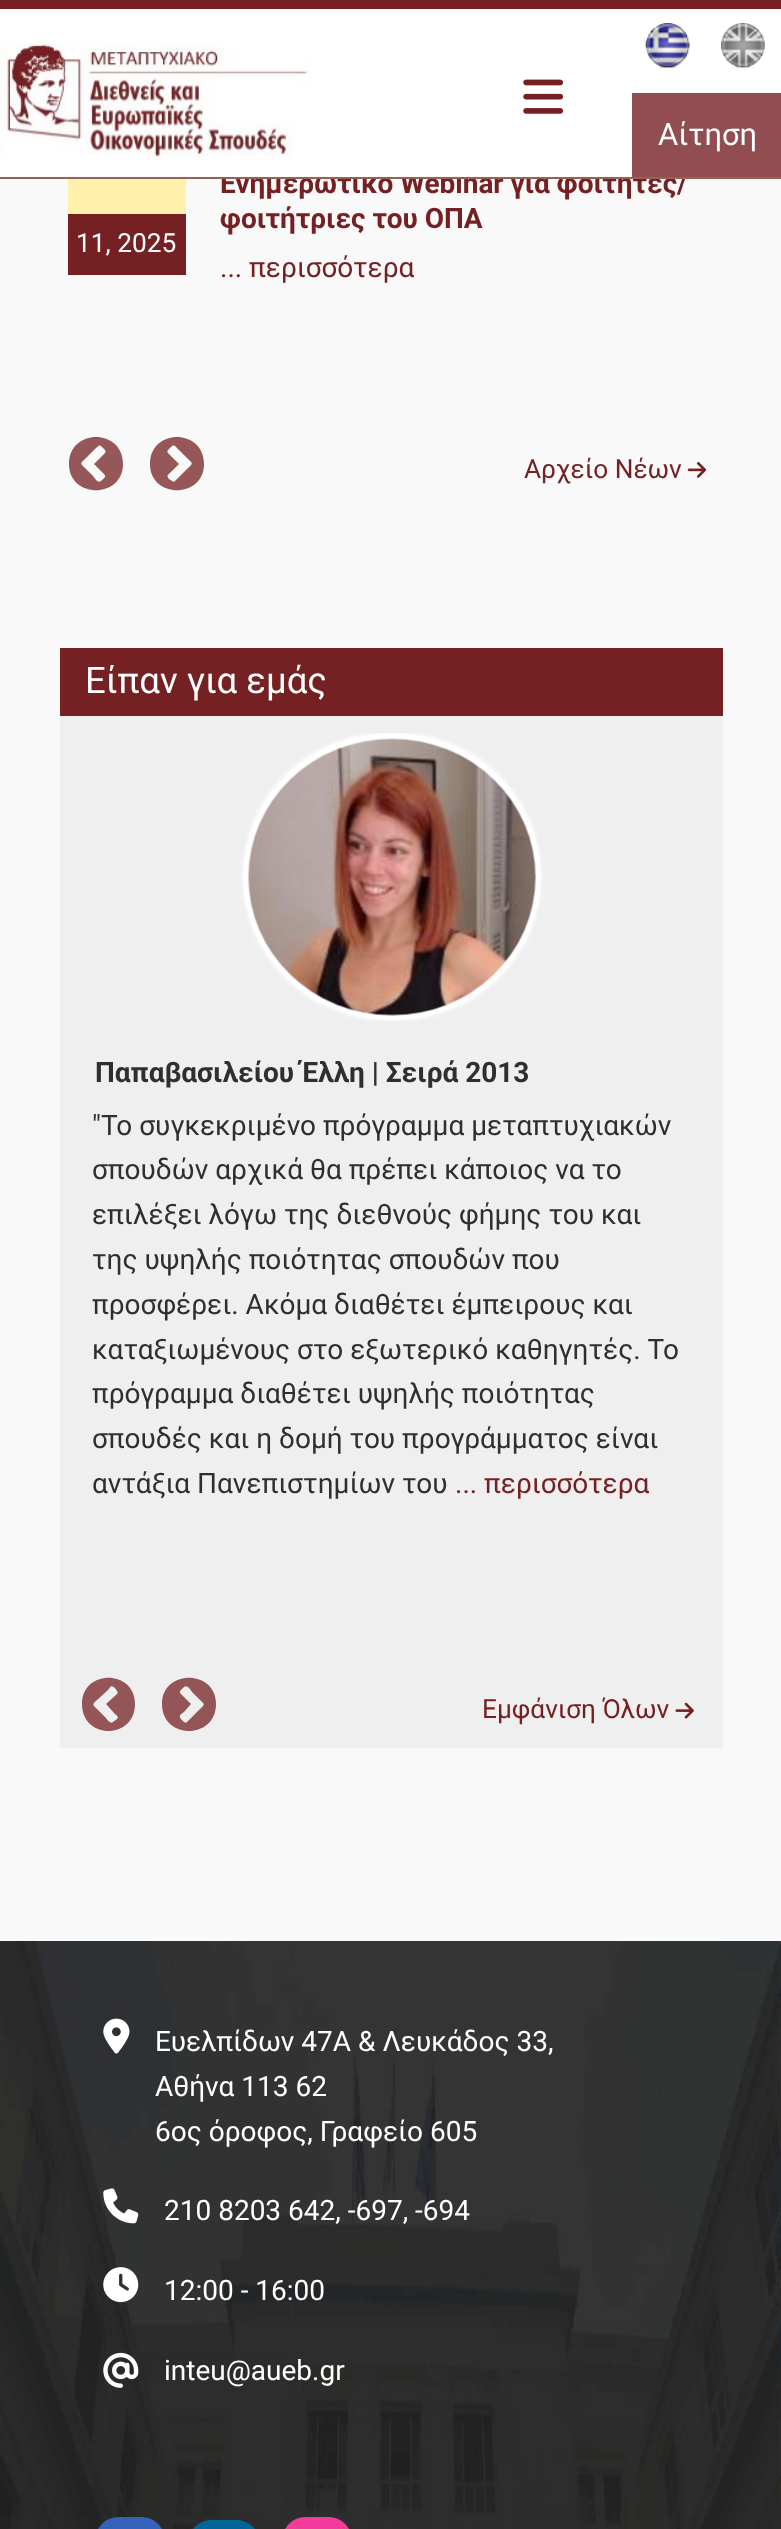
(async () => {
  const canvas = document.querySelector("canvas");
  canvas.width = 781;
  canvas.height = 2529;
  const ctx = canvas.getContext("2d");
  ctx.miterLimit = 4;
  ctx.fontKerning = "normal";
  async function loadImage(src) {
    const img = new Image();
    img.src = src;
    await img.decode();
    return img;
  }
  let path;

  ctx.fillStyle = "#f9f9f9";
  ctx.fillRect(0, 0, 781, 2529);
  ctx.fillStyle = "#752123";
  ctx.fillRect(68, 214, 118, 61);
  ctx.fillStyle = "#fff1ab";
  ctx.fillRect(68, 179, 118, 35);
  ctx.fillStyle = "#965759";
  path = new Path2D("M101 481C98 484 94 477 93 476L85 468C80 463 80 464 85 459L95 449C99 446 99 444 102 447C104 449 107 451 105 453L94 464L103 473C107 477 105 477 101 481ZM123 464C123 428 69 428 69 464C69 499 123 499 123 464Z");
  ctx.fill(path);
  path = new Path2D("M175 481C173 483 171 480 169 479C166 475 168 475 172 471L179 464L170 455C166 451 167 451 171 447C175 443 176 448 180 451L188 459C193 464 193 463 188 468ZM204 464C204 428 150 428 150 464C150 499 204 499 204 464Z");
  ctx.fill(path);
  ctx.drawImage(await loadImage("img/5.png"), 687, 462, 20, 16);
  ctx.fillStyle = "#efefef";
  ctx.fillRect(60, 716, 663, 1032);
  ctx.fillStyle = "#752123";
  ctx.fillRect(60, 648, 663, 68);
  ctx.save();
  ctx.beginPath();
  ctx.rect(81, 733, 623, 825);
  ctx.clip();
  ctx.fillStyle = "#ffffff";
  ctx.filter = "blur(2px)";
  ctx.beginPath();
  ctx.roundRect(243, 733, 298, 287, 143.5);
  ctx.fill();
  ctx.filter = "none";
  ctx.restore();
  path = new Path2D("M392 736C472.5 736 538 799 538 877C538 954.5 472.5 1017.5 392 1017.5C311.5 1017.5 246 954.5 246 877C246 799 311.5 736 392 736Z");
  ctx.strokeStyle = "#ffffff";
  ctx.lineWidth = 5.2;
  ctx.stroke(path);
  ctx.drawImage(await loadImage("img/6.png"), 248, 738, 288, 278);
  ctx.fillStyle = "#945556";
  path = new Path2D("M113 1722C111 1725 106 1718 105 1717L97 1709C92 1704 92 1705 97 1700L108 1690C111 1686 111 1685 115 1688C116 1690 119 1692 117 1694L106 1704L115 1714C120 1718 118 1718 113 1722ZM135 1704C135 1669 82 1669 82 1704C82 1740 135 1740 135 1704Z");
  ctx.fill(path);
  path = new Path2D("M187 1722C185 1724 183 1721 182 1720C178 1716 180 1715 184 1712L191 1704L182 1695C179 1692 179 1692 183 1688C187 1684 189 1688 192 1692L200 1700C205 1705 205 1704 200 1709ZM216 1704C216 1669 162 1669 162 1704C162 1740 216 1740 216 1704Z");
  ctx.fill(path);
  ctx.drawImage(await loadImage("img/7.png"), 675, 1702, 19, 17);
  ctx.drawImage(await loadImage("img/8.png"), 0, 1941, 781, 588);
  ctx.drawImage(await loadImage("img/9.png"), 103, 2018, 27, 36);
  ctx.drawImage(await loadImage("img/10.png"), 103, 2188, 36, 36);
  ctx.drawImage(await loadImage("img/11.png"), 103, 2267, 36, 36);
  ctx.drawImage(await loadImage("img/12.png"), 103, 2352, 36, 36);
  ctx.fillStyle = "#3262b9";
  ctx.beginPath();
  ctx.roundRect(95, 2517, 70, 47, 35);
  ctx.fill();
  ctx.fillStyle = "#006699";
  ctx.beginPath();
  ctx.roundRect(189, 2520, 70, 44, 35);
  ctx.fill();
  ctx.fillStyle = "#f33b9b";
  ctx.beginPath();
  ctx.roundRect(282, 2517, 70, 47, 35);
  ctx.fill();
  ctx.font = "bold 28px Roboto";
  ctx.fillStyle = "#752123";
  ctx.fillText("Ενημερωτικό Webinar για φοιτητές/", 220, 193);
  ctx.fillStyle = "#ffffff";
  ctx.fillRect(0, 9, 781, 168);
  ctx.fillStyle = "rgba(0, 0, 0, 0.1)";
  ctx.filter = "blur(2.5px)";
  ctx.beginPath();
  ctx.rect(0, -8, 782, 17);
  ctx.fill();
  ctx.filter = "none";
  ctx.fillStyle = "#752123";
  ctx.fillRect(0, 0, 781, 9);
  ctx.fillStyle = "#914d50";
  ctx.fillRect(632, 93, 149, 84);
  ctx.font = "31px Roboto";
  ctx.fillStyle = "#ffffff";
  ctx.fillText("Αίτηση", 658, 145);
  ctx.drawImage(await loadImage("img/4.png"), 721, 23, 44, 46);
  ctx.drawImage(await loadImage("img/3.png"), 645, 23, 45, 46);
  ctx.drawImage(await loadImage("img/1.png"), 0, 42, 311, 118);
  ctx.drawImage(await loadImage("img/2.png"), 523, 79, 40, 35);
  ctx.fillStyle = "#9a6052";
  ctx.fillRect(0, 177, 781, 2);
  ctx.font = "bold 28px Roboto";
  ctx.fillStyle = "#752123";
  ctx.fillText("φοιτήτριες του ΟΠΑ", 220, 228);
  ctx.font = "26.25px Roboto";
  ctx.fillStyle = "#ffffff";
  ctx.fillText("11, 2025", 76, 252);
  ctx.font = "28px Roboto";
  ctx.fillStyle = "#752123";
  ctx.fillText("... περισσότερα", 220, 277);
  ctx.font = "26.25px Roboto";
  ctx.fillText("Αρχείο Νέων", 524, 478);
  ctx.font = "36.5px Roboto";
  ctx.fillStyle = "#ffffff";
  ctx.fillText("Είπαν για εμάς", 85, 693);
  ctx.font = "bold 28px Roboto";
  ctx.fillStyle = "#2f2f2f";
  ctx.fillText("Παπαβασιλείου Έλλη | Σειρά 2013", 95, 1082);
  ctx.font = "28px Roboto";
  for (const [text, x, y] of [
    ["\"Το συγκεκριμένο πρόγραμμα μεταπτυχιακών", 92, 1135],
    ["σπουδών αρχικά θα πρέπει κάποιος να το", 92, 1179],
    ["επιλέξει λόγω της διεθνούς φήμης του και", 92, 1224],
    ["της υψηλής ποιότητας σπουδών που", 92, 1269],
    ["προσφέρει. Ακόμα διαθέτει έμπειρους και", 92, 1314],
    ["καταξιωμένους στο εξωτερικό καθηγητές. Το", 92, 1359],
    ["πρόγραμμα διαθέτει υψηλής ποιότητας", 92, 1403],
    ["σπουδές και η δομή του προγράμματος είναι", 92, 1448],
    ["αντάξια Πανεπιστημίων του", 92, 1493],
  ]) {
    ctx.fillText(text, x, y);
  }
  ctx.fillStyle = "#752123";
  ctx.fillText("... περισσότερα", 455, 1493);
  ctx.font = "26.25px Roboto";
  ctx.fillText("Εμφάνιση Όλων", 482, 1718);
  ctx.font = "28px Roboto";
  ctx.fillStyle = "#ffffff";
  for (const [text, x, y] of [
    ["Ευελπίδων 47Α & Λευκάδος 33,", 155, 2051],
    ["Αθήνα 113 62", 155, 2096],
    ["6ος όροφος, Γραφείο 605", 155, 2141],
    ["210 8203 642, -697, -694", 164, 2220],
    ["12:00 - 16:00", 164, 2300],
    ["inteu@aueb.gr", 164, 2380],
  ]) {
    ctx.fillText(text, x, y);
  }
})();
